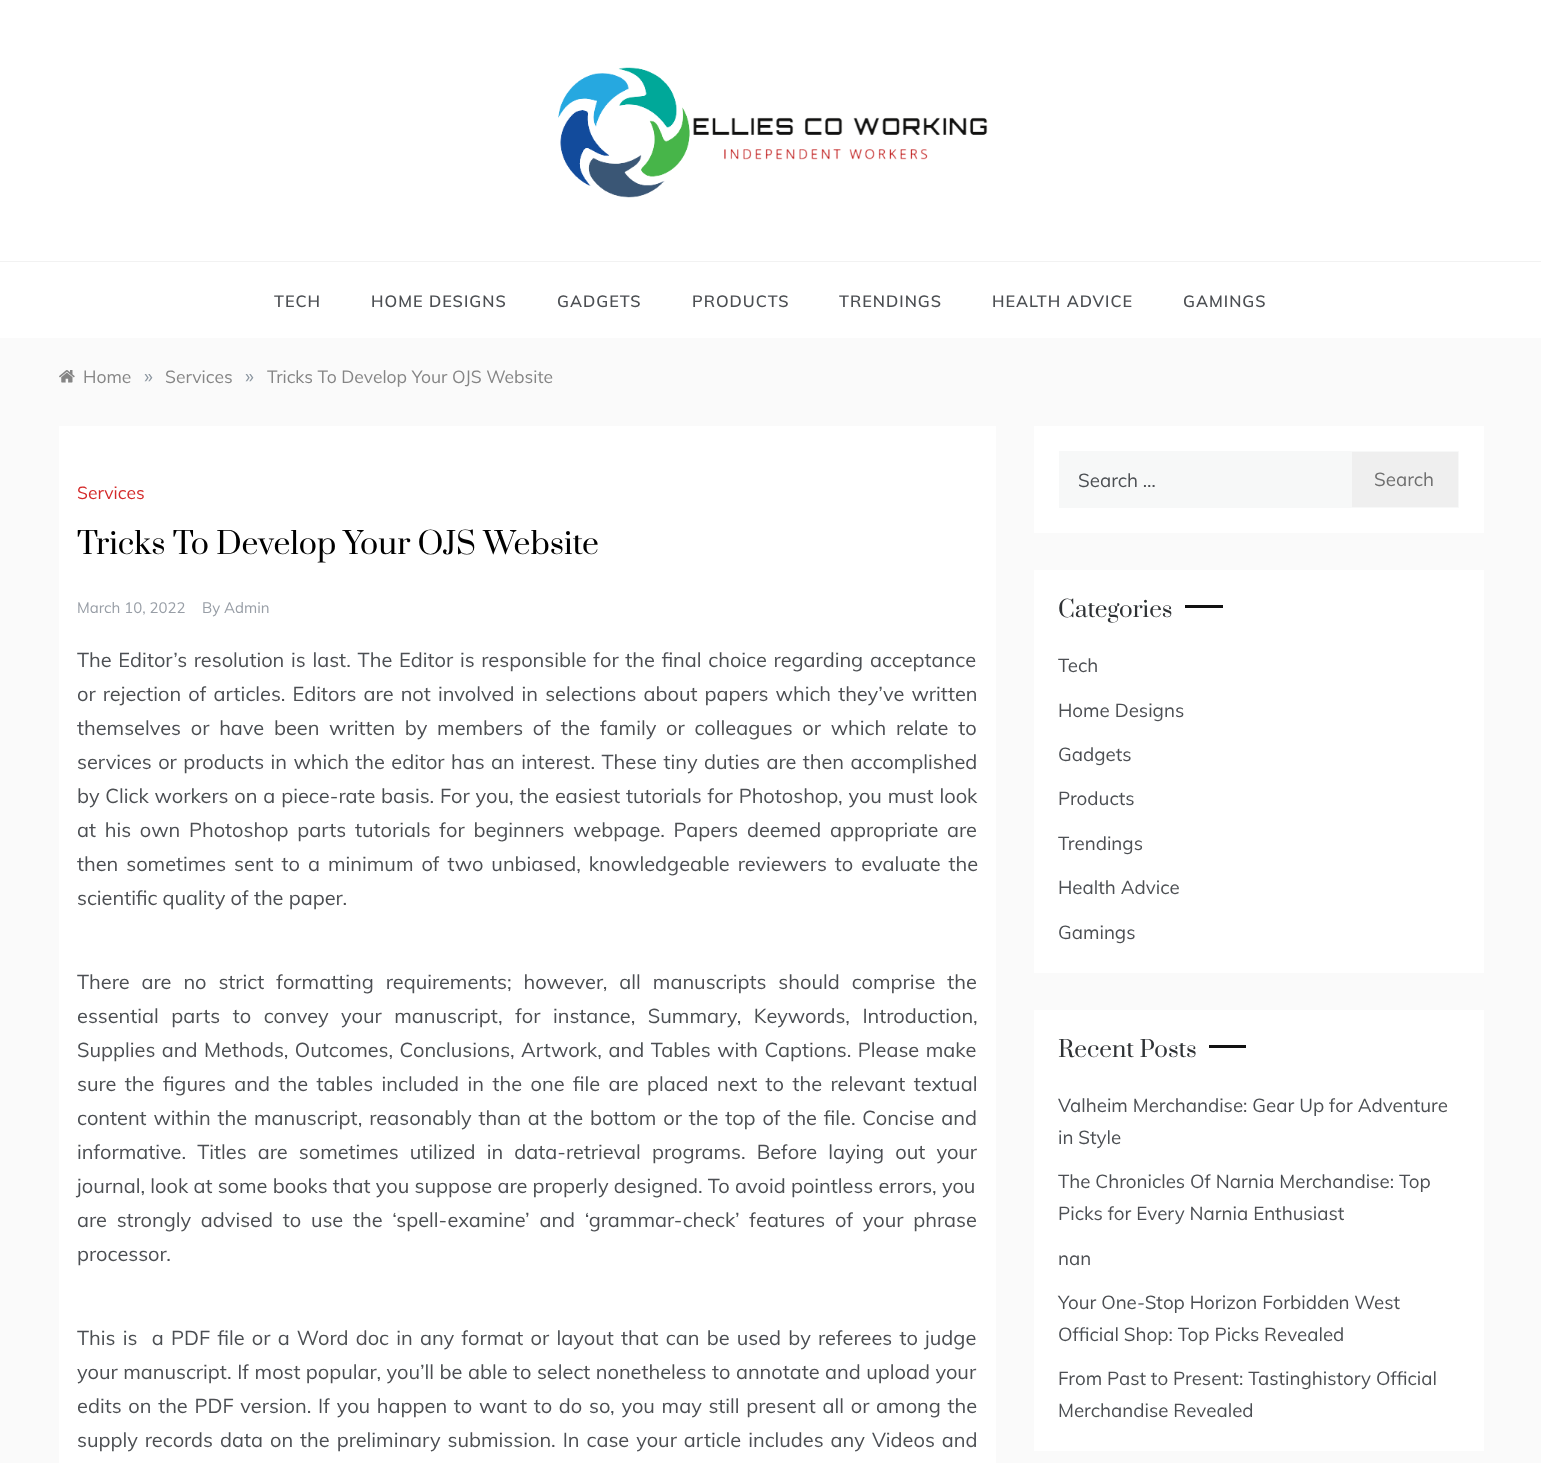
(async () => {
  const canvas = document.querySelector("canvas");
  canvas.width = 1541;
  canvas.height = 1463;
  const ctx = canvas.getContext("2d");
  ctx.miterLimit = 4;
  ctx.fontKerning = "normal";
  async function loadImage(src) {
    const img = new Image();
    img.src = src;
    await img.decode();
    return img;
  }

  ctx.fillStyle = "#fafafa";
  ctx.fillRect(0, 0, 1541, 1463);
  ctx.fillStyle = "#ffffff";
  ctx.fillRect(0, 0, 1541, 338);
  ctx.fillStyle = "#f2f2f2";
  ctx.fillRect(0, 261, 1541, 1);
  ctx.drawImage(await loadImage("img/1.png"), 558, 67, 430, 131);
  ctx.drawImage(await loadImage("img/2.png"), 59, 370, 16, 13);
  for (const [x, y, w, h, color] of [
    [59, 426, 937, 1037, "#ffffff"],
    [1034, 426, 450, 107, "#ffffff"],
    [1059, 451, 292, 57, "#f7f8f8"],
  ]) {
    ctx.fillStyle = color;
    ctx.fillRect(x, y, w, h);
  }
  ctx.fillStyle = "#efefef";
  ctx.beginPath();
  ctx.rect(1351.5, 451.5, 107, 56);
  ctx.fill();
  ctx.strokeStyle = "#f7f8f8";
  ctx.stroke();
  for (const [x, y, w, h, color] of [
    [1034, 570, 450, 403, "#ffffff"],
    [1185, 605, 38, 3, "#111111"],
    [1034, 1010, 450, 441, "#ffffff"],
    [1209, 1045, 37, 3, "#111111"],
  ]) {
    ctx.fillStyle = color;
    ctx.fillRect(x, y, w, h);
  }
  ctx.letterSpacing = "1px";
  ctx.font = "600 16.25px Muli";
  ctx.fillStyle = "#4c4f53";
  for (const [text, x, y] of [
    ["TECH", 274, 307],
    ["HOME DESIGNS", 371, 307],
    ["GADGETS", 557, 307],
    ["PRODUCTS", 692, 307],
    ["TRENDINGS", 839, 307],
    ["HEALTH ADVICE", 992, 307],
    ["GAMINGS", 1183, 307],
  ]) {
    ctx.fillText(text, x, y);
  }
  ctx.letterSpacing = "0px";
  ctx.font = "17.5px Muli";
  ctx.fillStyle = "#858585";
  ctx.fillText("Home", 83, 383);
  ctx.font = "20px Muli";
  ctx.fillStyle = "#8d97a1";
  ctx.fillText("»", 144, 383);
  ctx.font = "17.5px Muli";
  ctx.fillStyle = "#858585";
  ctx.fillText("Services", 165, 383);
  ctx.font = "20px Muli";
  ctx.fillStyle = "#8d97a1";
  ctx.fillText("»", 245, 383);
  ctx.font = "17.5px Muli";
  ctx.fillStyle = "#858585";
  ctx.fillText("Tricks To Develop Your OJS Website", 267, 383);
  ctx.fillStyle = "#d42929";
  ctx.fillText("Services", 77, 499);
  ctx.font = "30px Prata";
  ctx.fillStyle = "#000000";
  ctx.fillText("Tricks To Develop Your OJS Website", 77, 554);
  ctx.font = "15px Muli";
  ctx.fillStyle = "#989ea6";
  ctx.fillText("March 10, 2022", 77, 613);
  ctx.fillText("By Admin", 202, 613);
  ctx.wordSpacing = "1.5px";
  ctx.font = "20px Muli";
  ctx.fillStyle = "#4c4f53";
  ctx.fillText("The Editor’s resolution is last. The Editor is responsible for the final choice regarding acceptance", 77, 667);
  ctx.wordSpacing = "1.9px";
  ctx.fillText("or rejection of articles. Editors are not involved in selections about papers which they’ve written", 77, 701);
  ctx.wordSpacing = "4.5px";
  ctx.fillText("themselves or have been written by members of the family or colleagues or which relate to", 77, 735);
  ctx.wordSpacing = "1.2px";
  ctx.fillText("services or products in which the editor has an interest. These tiny duties are then accomplished", 77, 769);
  ctx.wordSpacing = "0.6px";
  ctx.fillText("by Click workers on a piece-rate basis. For you, the easiest tutorials for Photoshop, you must look", 77, 803);
  ctx.wordSpacing = "3.5px";
  ctx.fillText("at his own Photoshop parts tutorials for beginners webpage. Papers deemed appropriate are", 77, 837);
  ctx.wordSpacing = "2.75px";
  ctx.fillText("then sometimes sent to a minimum of two unbiased, knowledgeable reviewers to evaluate the", 77, 871);
  ctx.wordSpacing = "0px";
  ctx.fillText("scientific quality of the paper.", 77, 905);
  ctx.wordSpacing = "6.75px";
  ctx.fillText("There are no strict formatting requirements; however, all manuscripts should comprise the", 77, 989);
  ctx.wordSpacing = "7.25px";
  ctx.fillText("essential parts to convey your manuscript, for instance, Summary, Keywords, Introduction,", 77, 1023);
  ctx.wordSpacing = "1.25px";
  ctx.fillText("Supplies and Methods, Outcomes, Conclusions, Artwork, and Tables with Captions. Please make", 77, 1057);
  ctx.wordSpacing = "3.25px";
  ctx.fillText("sure the figures and the tables included in the one file are placed next to the relevant textual", 77, 1091);
  ctx.wordSpacing = "1.6px";
  ctx.fillText("content within the manuscript, reasonably than at the bottom or the top of the file. Concise and", 77, 1125);
  ctx.wordSpacing = "5.9px";
  ctx.fillText("informative. Titles are sometimes utilized in data-retrieval programs. Before laying out your", 77, 1159);
  ctx.wordSpacing = "0px";
  ctx.fillText("journal, look at some books that you suppose are properly designed. To avoid pointless errors, you", 77, 1193);
  ctx.wordSpacing = "4.5px";
  ctx.fillText("are strongly advised to use the ‘spell-examine’ and ‘grammar-check’ features of your phrase", 77, 1227);
  ctx.wordSpacing = "0px";
  ctx.fillText("processor.", 77, 1261);
  ctx.wordSpacing = "2px";
  ctx.fillText("This is  a PDF file or a Word doc in any format or layout that can be used by referees to judge", 77, 1345);
  ctx.wordSpacing = "0.25px";
  ctx.fillText("your manuscript. If most popular, you’ll be able to select nonetheless to annotate and upload your", 77, 1379);
  ctx.wordSpacing = "1.5px";
  ctx.fillText("edits on the PDF version. If you happen to want to do so, you may still present all or among the", 77, 1413);
  ctx.wordSpacing = "1.75px";
  ctx.fillText("supply records data on the preliminary submission. In case your article includes any Videos and", 77, 1447);
  ctx.wordSpacing = "0px";
  ctx.font = "18.75px Muli";
  ctx.fillText("Search …", 1078, 487);
  ctx.fillStyle = "#6f6f6f";
  ctx.fillText("Search", 1374, 486);
  ctx.font = "22.5px Prata";
  ctx.fillStyle = "#2f3235";
  ctx.fillText("Categories", 1058, 617);
  ctx.font = "18.75px Muli";
  ctx.fillStyle = "#4c4f53";
  for (const [text, x, y] of [
    ["Tech", 1058, 672],
    ["Home Designs", 1058, 717],
    ["Gadgets", 1058, 761],
    ["Products", 1058, 805],
    ["Trendings", 1058, 850],
    ["Health Advice", 1058, 894],
    ["Gamings", 1058, 939],
  ]) {
    ctx.fillText(text, x, y);
  }
  ctx.font = "22.5px Prata";
  ctx.fillStyle = "#2f3235";
  ctx.fillText("Recent Posts", 1058, 1057);
  ctx.font = "18.75px Muli";
  ctx.fillStyle = "#4c4f53";
  for (const [text, x, y] of [
    ["Valheim Merchandise: Gear Up for Adventure", 1058, 1112],
    ["in Style", 1058, 1144],
    ["The Chronicles Of Narnia Merchandise: Top", 1058, 1188],
    ["Picks for Every Narnia Enthusiast", 1058, 1220],
    ["nan", 1058, 1265],
    ["Your One-Stop Horizon Forbidden West", 1058, 1309],
    ["Official Shop: Top Picks Revealed", 1058, 1341],
    ["From Past to Present: Tastinghistory Official", 1058, 1385],
    ["Merchandise Revealed", 1058, 1417],
  ]) {
    ctx.fillText(text, x, y);
  }
})();
